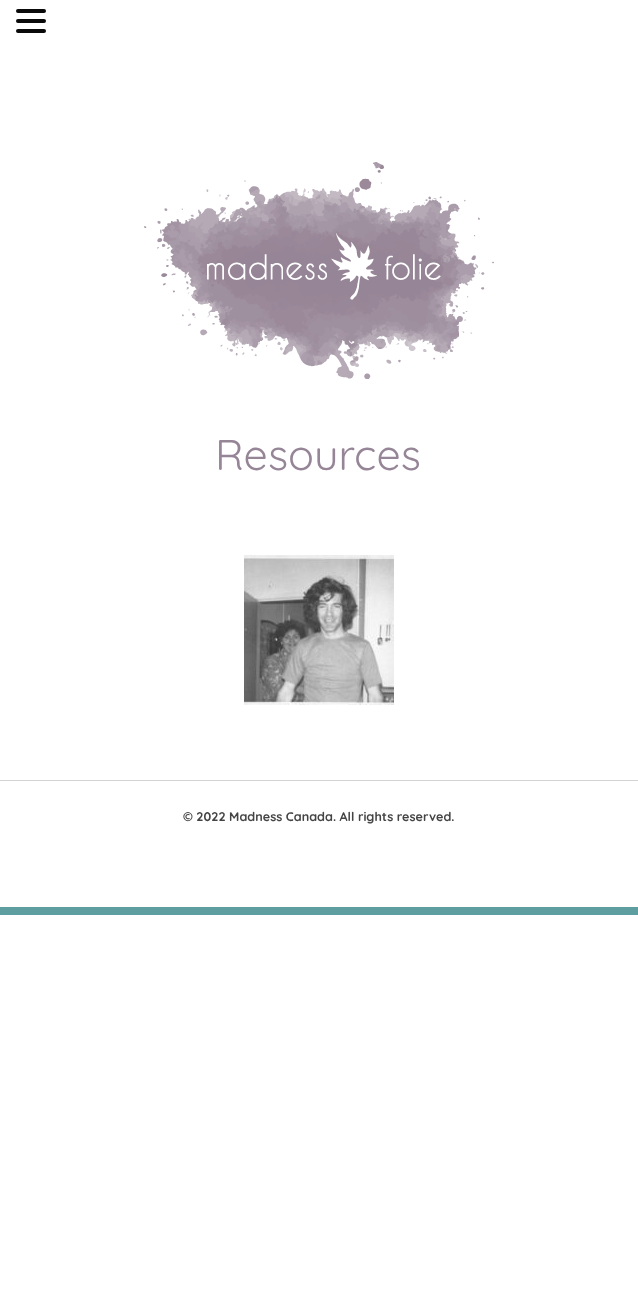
(async () => {
  const canvas = document.querySelector("canvas");
  canvas.width = 638;
  canvas.height = 1309;
  const ctx = canvas.getContext("2d");
  ctx.miterLimit = 4;
  ctx.fontKerning = "normal";
  async function loadImage(src) {
    const img = new Image();
    img.src = src;
    await img.decode();
    return img;
  }

  ctx.fillStyle = "#ffffff";
  ctx.fillRect(0, 0, 638, 1309);
  ctx.fillStyle = "#5f9ea0";
  ctx.fillRect(0, 907, 638, 8);
  ctx.fillStyle = "#0a0a0a";
  ctx.beginPath();
  ctx.roundRect(16, 9, 30, 4, 2);
  ctx.fill();
  ctx.beginPath();
  ctx.roundRect(16, 19, 30, 4, 2);
  ctx.fill();
  ctx.beginPath();
  ctx.roundRect(16, 29, 30, 4, 2);
  ctx.fill();
  ctx.drawImage(await loadImage("img/1.png"), 144, 162, 350, 217);
  ctx.drawImage(await loadImage("img/2.png"), 244, 555, 150, 150);
  ctx.fillStyle = "#d3d3d3";
  ctx.fillRect(0, 780, 638, 1);
  ctx.font = "43px Quicksand";
  ctx.fillStyle = "#968596";
  ctx.fillText("Resources", 215, 470);
  ctx.font = "bold 12.6px Quicksand";
  ctx.fillStyle = "#444444";
  ctx.fillText("© 2022 Madness Canada. All rights reserved.", 183, 821);
})();
